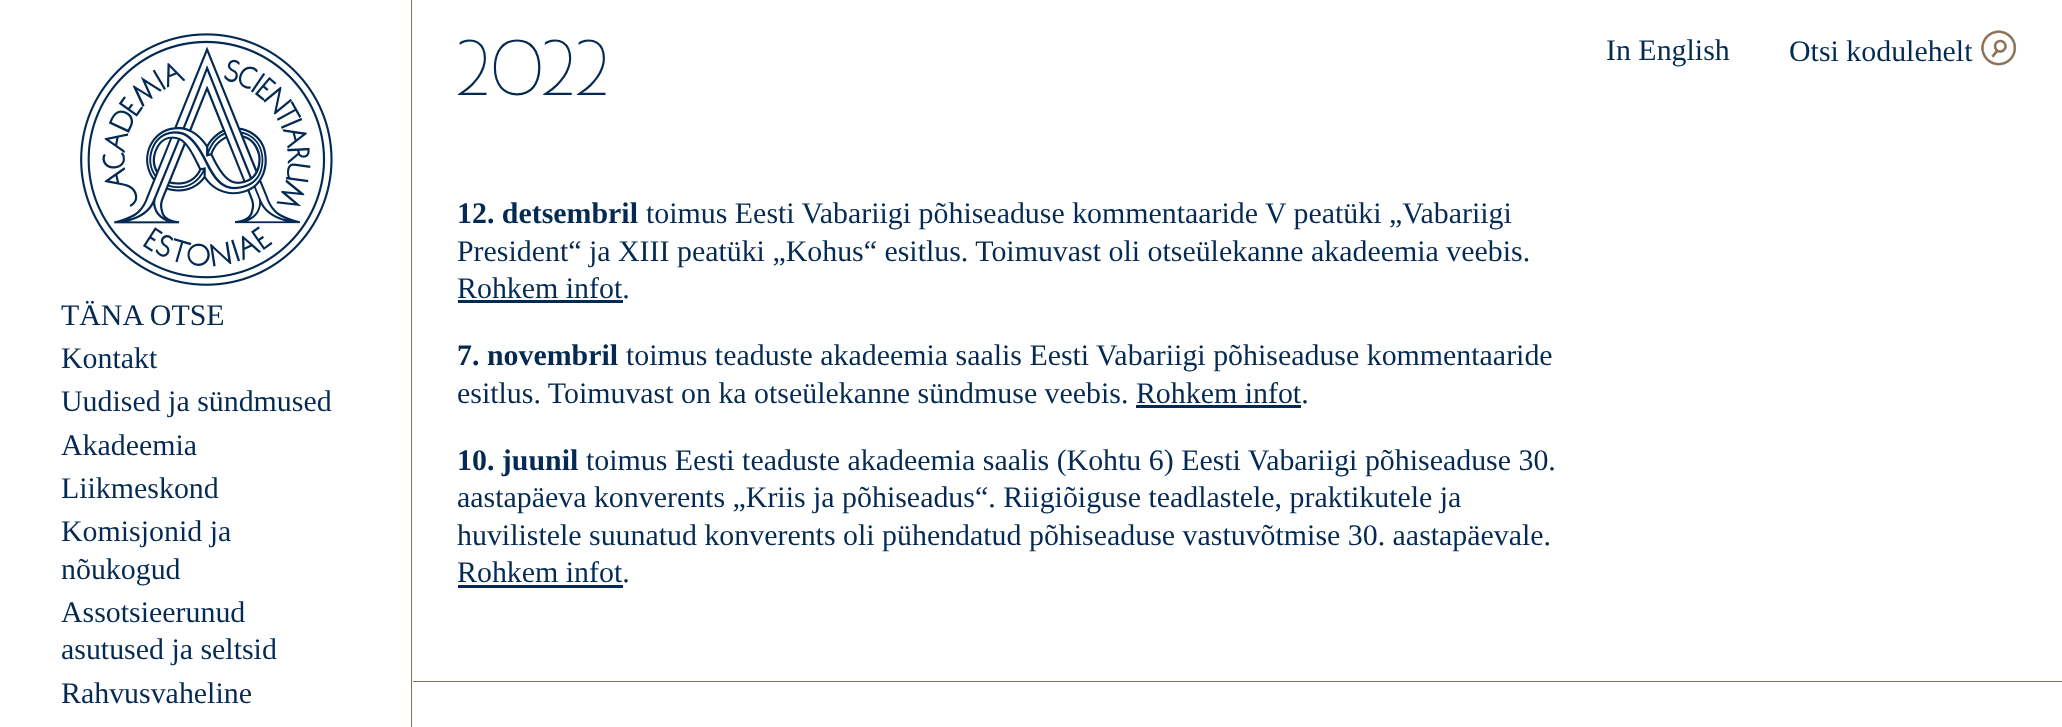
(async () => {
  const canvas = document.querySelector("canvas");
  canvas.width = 2062;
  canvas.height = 727;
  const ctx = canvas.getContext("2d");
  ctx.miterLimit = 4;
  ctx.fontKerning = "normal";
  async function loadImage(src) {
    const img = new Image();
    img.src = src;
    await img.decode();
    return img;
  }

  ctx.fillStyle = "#ffffff";
  ctx.fillRect(0, 0, 2062, 727);
  ctx.fillStyle = "#897056";
  ctx.fillRect(411, 0, 1, 727);
  ctx.drawImage(await loadImage("img/1.png"), 80, 33, 253, 253);
  ctx.drawImage(await loadImage("img/2.png"), 1981, 30, 36, 36);
  for (const [x, y, w, h, color] of [
    [458, 300, 165, 3, "#042a54"],
    [1136, 405, 165, 3, "#042a54"],
    [458, 585, 165, 3, "#042a54"],
    [413, 681, 1649, 1, "#897056"],
  ]) {
    ctx.fillStyle = color;
    ctx.fillRect(x, y, w, h);
  }
  ctx.font = "29.9px Liberation Serif";
  ctx.fillStyle = "#042a54";
  for (const [text, x, y] of [
    ["TÄNA OTSE", 61, 325],
    ["Kontakt", 61, 368],
    ["Uudised ja sündmused", 61, 411],
    ["Akadeemia", 61, 455],
    ["Liikmeskond", 61, 498],
    ["Komisjonid ja", 61, 541],
    ["nõukogud", 61, 579],
    ["Assotsieerunud", 61, 622],
    ["asutused ja seltsid", 61, 659],
    ["Rahvusvaheline", 61, 703],
  ]) {
    ctx.fillText(text, x, y);
  }
  ctx.font = "300 69px 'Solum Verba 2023'";
  ctx.fillText("2022", 457, 95);
  ctx.font = "29.9px Liberation Serif";
  ctx.fillText("In English", 1606, 60);
  ctx.fillText("Otsi kodulehelt", 1789, 61);
  ctx.font = "bold 29.9px Liberation Serif";
  ctx.fillText("12. detsembril", 457, 223);
  ctx.font = "29.9px Liberation Serif";
  for (const [text, x, y] of [
    ["toimus Eesti Vabariigi põhiseaduse kommentaaride V peatüki „Vabariigi", 646, 223],
    ["President“ ja XIII peatüki „Kohus“ esitlus. Toimuvast oli otseülekanne akadeemia veebis.", 457, 261],
    ["Rohkem infot.", 457, 298],
  ]) {
    ctx.fillText(text, x, y);
  }
  ctx.font = "bold 29.9px Liberation Serif";
  ctx.fillText("7. novembril", 457, 365);
  ctx.font = "29.9px Liberation Serif";
  ctx.fillText("toimus teaduste akadeemia saalis Eesti Vabariigi põhiseaduse kommentaaride", 626, 365);
  ctx.fillText("esitlus. Toimuvast on ka otseülekanne sündmuse veebis. Rohkem infot.", 457, 403);
  ctx.font = "bold 29.9px Liberation Serif";
  ctx.fillText("10. juunil", 457, 470);
  ctx.font = "29.9px Liberation Serif";
  for (const [text, x, y] of [
    ["toimus Eesti teaduste akadeemia saalis (Kohtu 6) Eesti Vabariigi põhiseaduse 30.", 586, 470],
    ["aastapäeva konverents „Kriis ja põhiseadus“. Riigiõiguse teadlastele, praktikutele ja", 457, 507],
    ["huvilistele suunatud konverents oli pühendatud põhiseaduse vastuvõtmise 30. aastapäevale.", 457, 545],
    ["Rohkem infot.", 457, 582],
  ]) {
    ctx.fillText(text, x, y);
  }
})();
